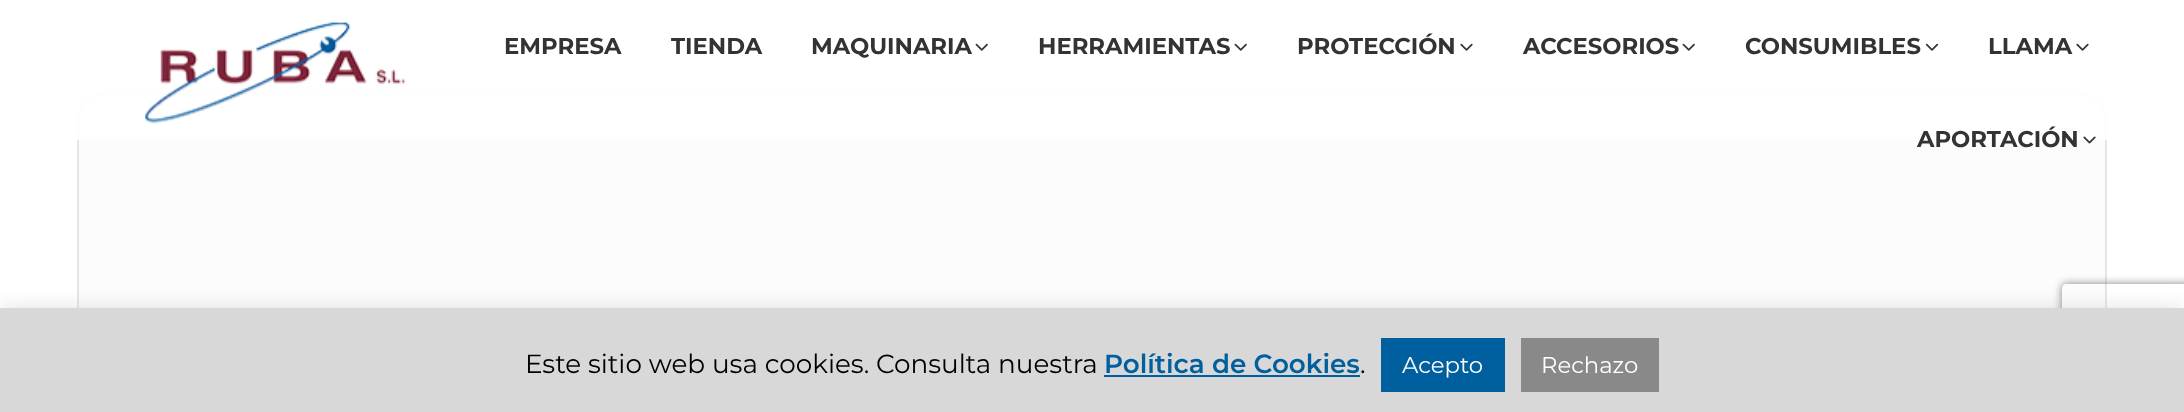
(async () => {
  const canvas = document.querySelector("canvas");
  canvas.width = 2184;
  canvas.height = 412;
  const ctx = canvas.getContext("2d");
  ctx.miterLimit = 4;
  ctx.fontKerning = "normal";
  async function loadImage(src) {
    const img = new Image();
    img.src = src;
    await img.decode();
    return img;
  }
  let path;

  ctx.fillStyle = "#ffffff";
  ctx.fillRect(0, 0, 2184, 412);
  ctx.fillStyle = "#fcfcfc";
  ctx.beginPath();
  ctx.roundRect(78, 94, 2028, 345, 25);
  ctx.fill();
  ctx.strokeStyle = "#e4e5e7";
  ctx.lineWidth = 2;
  ctx.stroke();
  ctx.fillStyle = "rgba(255, 255, 255, 0.91)";
  ctx.fillRect(77, 93, 2030, 47);
  ctx.drawImage(await loadImage("img/1.png"), 145, 22, 261, 102);
  ctx.drawImage(await loadImage("img/2.png"), 975, 43, 13, 8);
  ctx.drawImage(await loadImage("img/3.png"), 1234, 43, 13, 8);
  ctx.drawImage(await loadImage("img/4.png"), 1460, 43, 13, 8);
  ctx.drawImage(await loadImage("img/3.png"), 1682, 43, 13, 8);
  ctx.drawImage(await loadImage("img/5.png"), 1925, 43, 14, 8);
  ctx.drawImage(await loadImage("img/4.png"), 2076, 43, 13, 8);
  ctx.drawImage(await loadImage("img/6.png"), 2083, 136, 13, 8);
  ctx.fillStyle = "rgba(172, 171, 171, 0.3)";
  ctx.filter = "blur(9px)";
  ctx.beginPath();
  ctx.rect(0, 306, 2184, 105);
  ctx.fill();
  ctx.filter = "none";
  ctx.save();
  path = new Path2D("M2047 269H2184V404H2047ZM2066 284H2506C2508 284 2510 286 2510 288V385C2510 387 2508 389 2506 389H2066C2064 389 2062 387 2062 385V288C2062 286 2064 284 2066 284Z");
  ctx.clip(path, "evenodd");
  ctx.fillStyle = "#808080";
  ctx.filter = "blur(4.5px)";
  ctx.beginPath();
  ctx.roundRect(2062, 284, 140, 105, 4);
  ctx.fill();
  ctx.filter = "none";
  ctx.restore();
  for (const [x, y, w, h, color] of [
    [0, 308, 2184, 104, "#d8d8d8"],
    [1104, 375, 256, 2, "#005f9f"],
    [1381, 338, 124, 54, "#005f9f"],
    [1521, 338, 138, 54, "#898989"],
  ]) {
    ctx.fillStyle = color;
    ctx.fillRect(x, y, w, h);
  }
  ctx.font = "bold 22.75px Montserrat";
  ctx.fillStyle = "#333333";
  for (const [text, x, y] of [
    ["EMPRESA", 504, 54],
    ["TIENDA", 671, 54],
    ["MAQUINARIA", 811, 54],
    ["HERRAMIENTAS", 1038, 54],
    ["PROTECCIÓN", 1297, 54],
    ["ACCESORIOS", 1523, 54],
    ["CONSUMIBLES", 1745, 54],
    ["LLAMA", 1988, 54],
    ["APORTACIÓN", 1917, 147],
  ]) {
    ctx.fillText(text, x, y);
  }
  ctx.font = "26.25px Montserrat";
  ctx.fillStyle = "#000000";
  ctx.fillText("Este sitio web usa cookies. Consulta nuestra", 525, 373);
  ctx.font = "600 26.25px Montserrat";
  ctx.fillStyle = "#005f9f";
  ctx.fillText("Política de Cookies", 1104, 373);
  ctx.font = "26.25px Montserrat";
  ctx.fillStyle = "#000000";
  ctx.fillText(".", 1360, 373);
  ctx.font = "22.75px Montserrat";
  ctx.fillStyle = "#ffffff";
  ctx.fillText("Acepto", 1402, 373);
  ctx.fillText("Rechazo", 1541, 373);
})();
